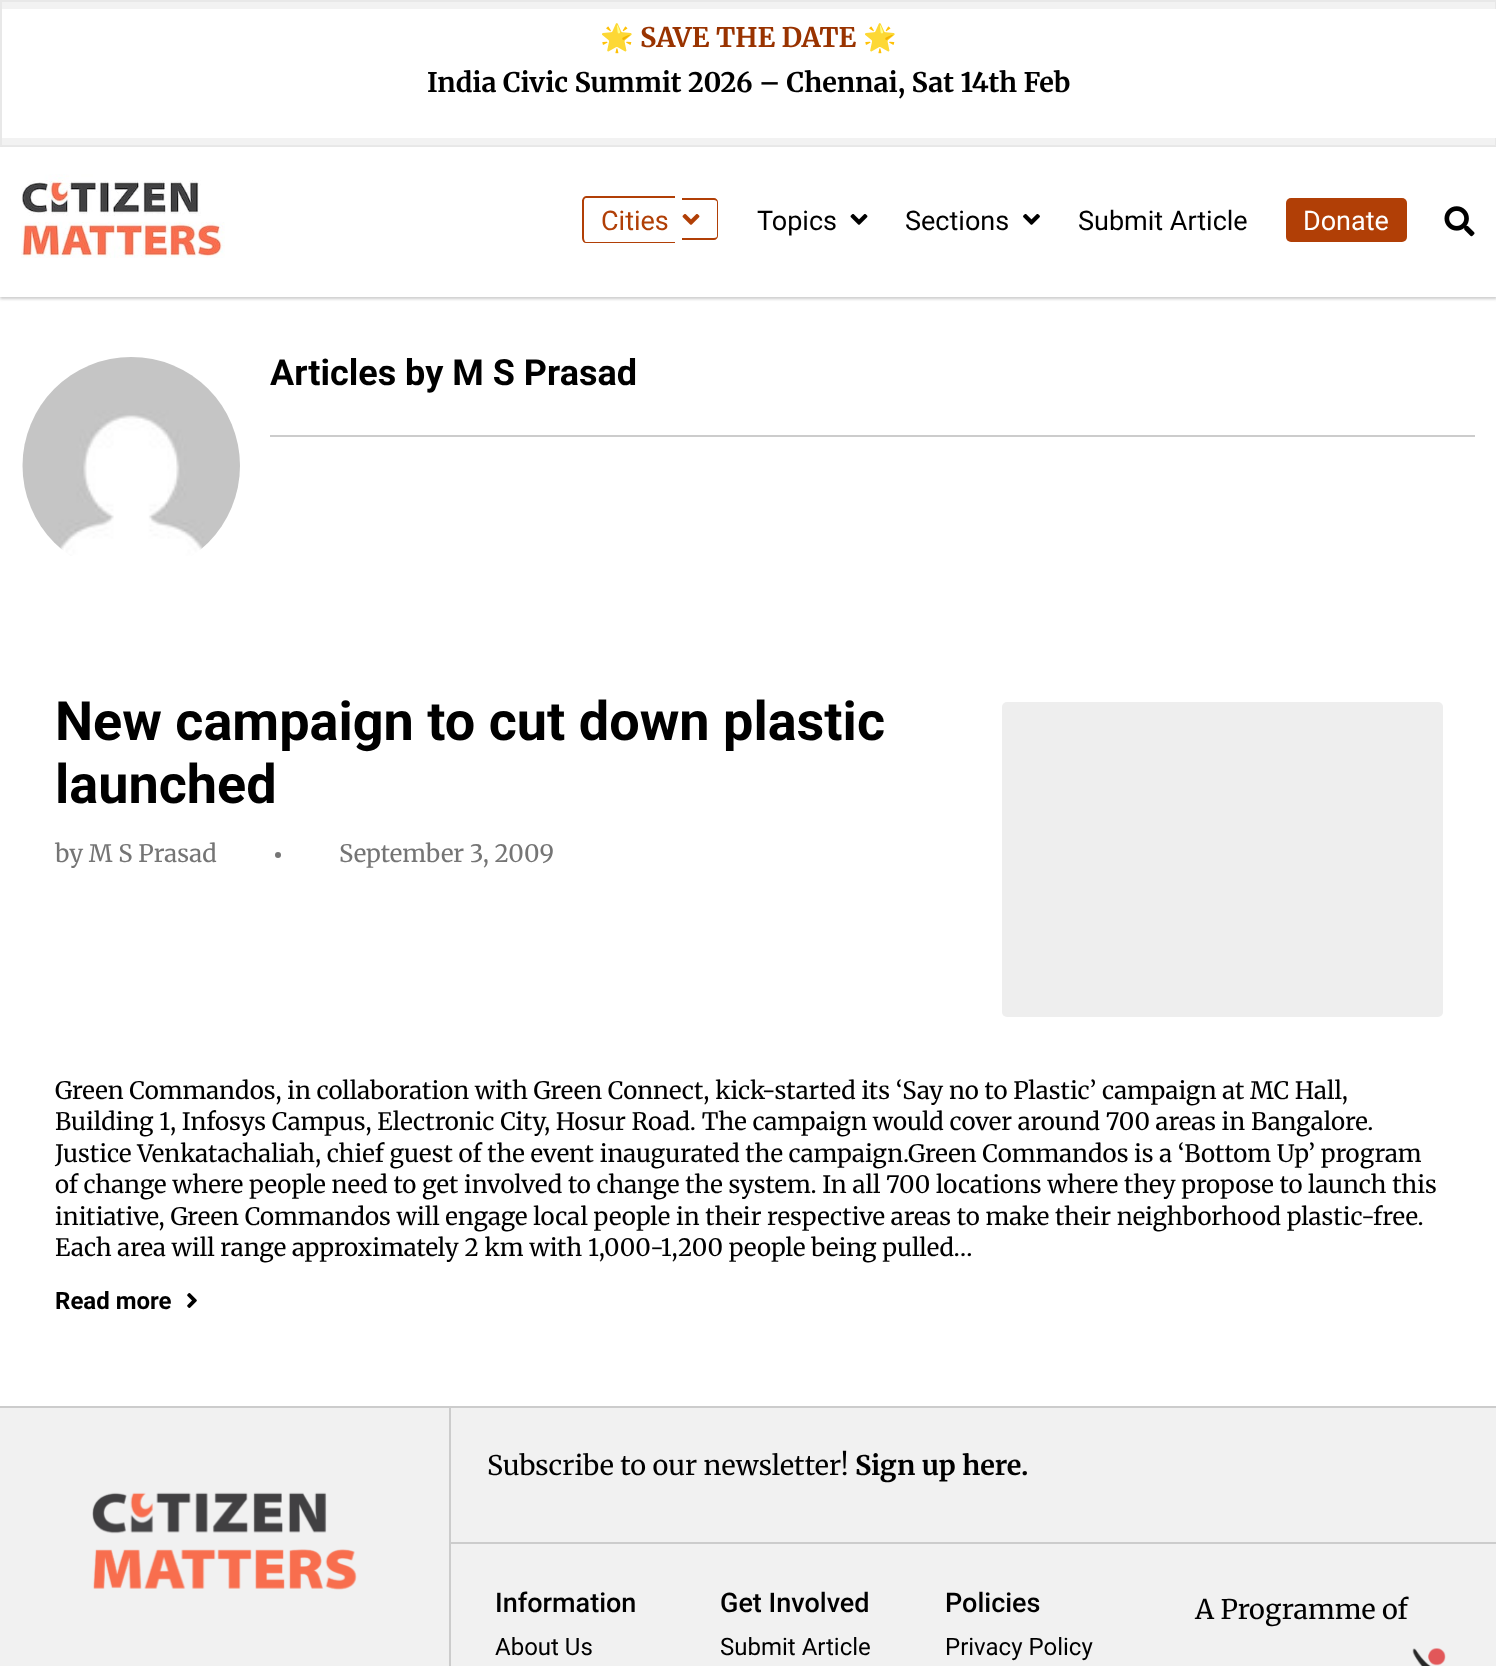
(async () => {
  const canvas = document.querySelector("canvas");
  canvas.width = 1496;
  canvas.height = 1666;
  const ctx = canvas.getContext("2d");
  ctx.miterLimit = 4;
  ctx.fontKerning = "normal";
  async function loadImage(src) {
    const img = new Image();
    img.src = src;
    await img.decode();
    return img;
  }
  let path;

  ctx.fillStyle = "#ffffff";
  ctx.fillRect(0, 0, 1496, 1666);
  ctx.fillStyle = "#f2f2f2";
  ctx.beginPath();
  ctx.rect(1, 1, 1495, 145);
  ctx.fill();
  ctx.strokeStyle = "#e8e8e8";
  ctx.lineWidth = 2;
  ctx.stroke();
  ctx.fillStyle = "#ffffff";
  ctx.fillRect(2, 9, 1494, 129);
  ctx.save();
  path = new Path2D("M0 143H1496V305H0ZM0 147H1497V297H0Z");
  ctx.clip(path, "evenodd");
  ctx.fillStyle = "#cccccc";
  ctx.filter = "blur(1.5px)";
  ctx.beginPath();
  ctx.rect(0, 149, 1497, 150);
  ctx.fill();
  ctx.filter = "none";
  ctx.restore();
  ctx.drawImage(await loadImage("img/1.png"), 21, 174, 204, 84);
  ctx.fillStyle = "#b13f06";
  path = new Path2D("M586 196H675V243H586C584 243 582 241 582 238V201C582 199 584 196 586 196ZM586 198H675V242H586C585 242 584 240 584 238V201C584 199 585 198 586 198Z");
  ctx.fill(path, "evenodd");
  path = new Path2D("M682 198H714C716 198 718 200 718 202V236C718 238 716 240 714 240H682ZM682 200H714C716 200 717 201 717 202V236C717 237 716 238 714 238H682Z");
  ctx.fill(path, "evenodd");
  ctx.drawImage(await loadImage("img/2.png"), 682, 214, 18, 11);
  ctx.drawImage(await loadImage("img/3.png"), 850, 214, 18, 11);
  ctx.drawImage(await loadImage("img/4.png"), 1023, 214, 17, 11);
  ctx.beginPath();
  ctx.roundRect(1286, 198, 121, 44, 5);
  ctx.fill();
  ctx.drawImage(await loadImage("img/5.png"), 1444, 206, 31, 31);
  ctx.drawImage(await loadImage("img/6.png"), 22, 357, 218, 199);
  ctx.fillStyle = "#cccccc";
  ctx.fillRect(270, 435, 1205, 2);
  ctx.fillStyle = "#757575";
  ctx.beginPath();
  ctx.arc(278, 855, 3, 0, Math.PI * 2);
  ctx.fill();
  ctx.fillStyle = "#eeeeee";
  ctx.beginPath();
  ctx.roundRect(1002, 702, 441, 315, 5);
  ctx.fill();
  ctx.drawImage(await loadImage("img/7.png"), 187, 1293, 10, 15);
  for (const [x, y, w, h, color] of [
    [0, 1408, 1496, 258, "#f1f1f1"],
    [0, 1406, 1496, 2, "#cccccc"],
    [449, 1407, 2, 259, "#cccccc"],
  ]) {
    ctx.fillStyle = color;
    ctx.fillRect(x, y, w, h);
  }
  ctx.drawImage(await loadImage("img/8.png"), 92, 1492, 265, 98);
  ctx.fillRect(450, 1542, 1046, 2);
  ctx.drawImage(await loadImage("img/9.png"), 1412, 1648, 34, 18);
  ctx.font = "bold 27px Noto Color Emoji";
  ctx.fillStyle = "#993300";
  ctx.fillText("🌟", 600, 47);
  ctx.font = "bold 27px Merriweather";
  ctx.fillText("SAVE THE DATE", 640, 47);
  ctx.font = "bold 27px Noto Color Emoji";
  ctx.fillText("🌟", 863, 47);
  ctx.font = "bold 27px Merriweather";
  ctx.fillStyle = "#000000";
  ctx.fillText("India Civic Summit 2026 – Chennai, Sat 14th Feb", 427, 92);
  ctx.font = "27px Roboto";
  ctx.fillStyle = "#b13f06";
  ctx.fillText("Cities", 601, 230);
  ctx.fillStyle = "#000000";
  for (const [text, x, y] of [
    ["Topics", 757, 230],
    ["Sections", 905, 230],
    ["Submit Article", 1078, 230],
  ]) {
    ctx.fillText(text, x, y);
  }
  ctx.fillStyle = "#ffffff";
  ctx.fillText("Donate", 1303, 230);
  ctx.font = "bold 36px Roboto";
  ctx.fillStyle = "#000000";
  ctx.fillText("Articles by M S Prasad", 270, 385);
  ctx.font = "bold 54px Roboto";
  ctx.fillText("New campaign to cut down plastic", 55, 740);
  ctx.fillText("launched", 55, 803);
  ctx.font = "24px Merriweather";
  ctx.fillStyle = "#757575";
  ctx.fillText("by M S Prasad", 55, 862);
  ctx.fillText("September 3, 2009", 339, 862);
  ctx.fillStyle = "#000000";
  for (const [text, x, y] of [
    ["Green Commandos, in collaboration with Green Connect, kick-started its ‘Say no to Plastic’ campaign at MC Hall,", 55, 1099],
    ["Building 1, Infosys Campus, Electronic City, Hosur Road. The campaign would cover around 700 areas in Bangalore.", 55, 1130],
    ["Justice Venkatachaliah, chief guest of the event inaugurated the campaign.Green Commandos is a ‘Bottom Up’ program", 55, 1162],
    ["of change where people need to get involved to change the system. In all 700 locations where they propose to launch this", 55, 1193],
    ["initiative, Green Commandos will engage local people in their respective areas to make their neighborhood plastic-free.", 55, 1225],
    ["Each area will range approximately 2 km with 1,000-1,200 people being pulled…", 55, 1256],
  ]) {
    ctx.fillText(text, x, y);
  }
  ctx.font = "bold 24px Roboto";
  ctx.fillText("Read more", 55, 1309);
  ctx.font = "27px Merriweather";
  ctx.fillText("Subscribe to our newsletter!", 487, 1475);
  ctx.font = "bold 27px Merriweather";
  ctx.fillText("Sign up here.", 855, 1475);
  ctx.font = "500 27px Roboto";
  ctx.fillText("Information", 495, 1612);
  ctx.font = "24px Roboto";
  ctx.fillText("About Us", 495, 1655);
  ctx.font = "500 27px Roboto";
  ctx.fillText("Get Involved", 720, 1612);
  ctx.font = "24px Roboto";
  ctx.fillText("Submit Article", 720, 1655);
  ctx.font = "500 27px Roboto";
  ctx.fillText("Policies", 945, 1612);
  ctx.font = "24px Roboto";
  ctx.fillText("Privacy Policy", 945, 1655);
  ctx.font = "27px Merriweather";
  ctx.fillText("A Programme of", 1195, 1619);
})();
